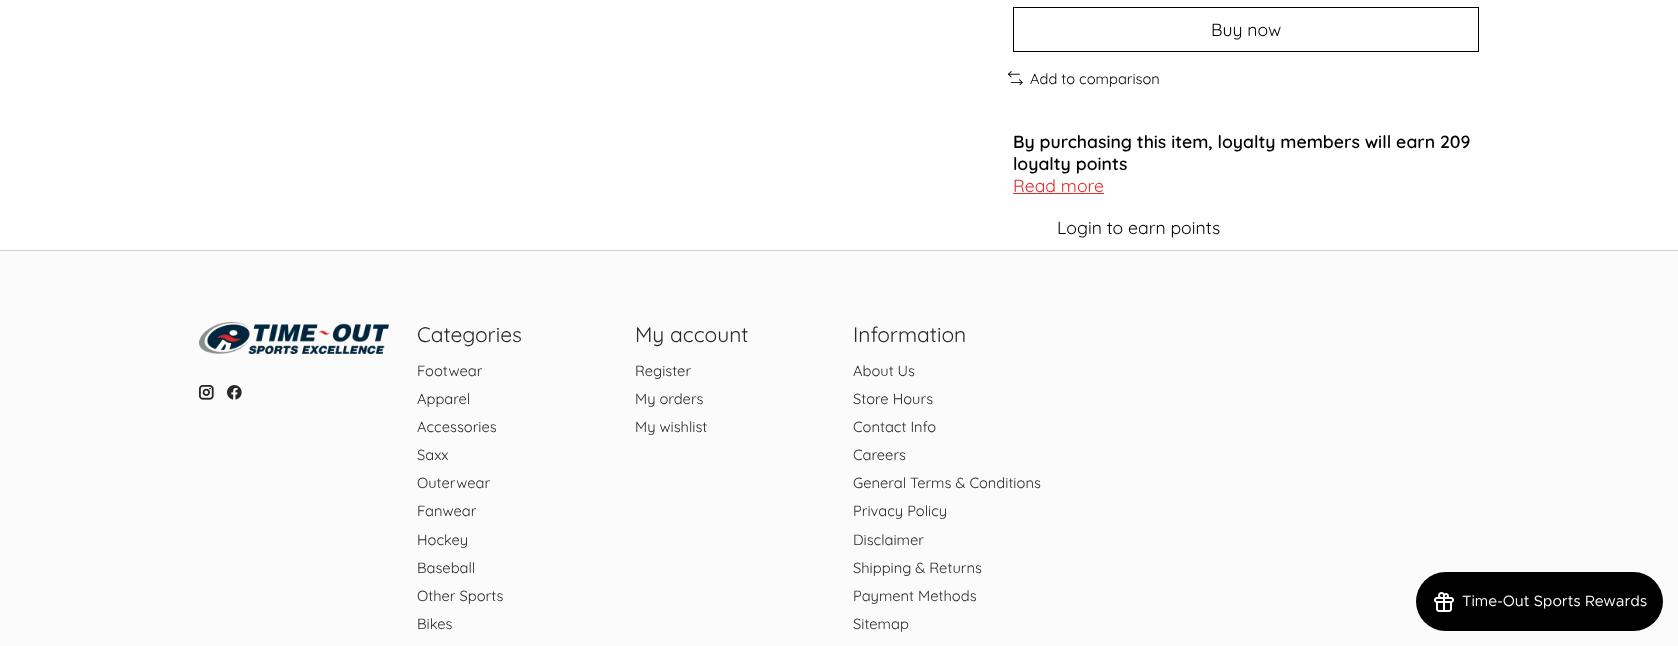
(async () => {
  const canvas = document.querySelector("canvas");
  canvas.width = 1678;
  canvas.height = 646;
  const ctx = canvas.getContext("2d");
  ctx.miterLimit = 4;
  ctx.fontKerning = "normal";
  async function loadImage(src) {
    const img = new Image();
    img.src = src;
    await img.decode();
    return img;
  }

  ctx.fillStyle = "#ffffff";
  ctx.fillRect(0, 0, 1678, 646);
  ctx.strokeStyle = "#000000";
  ctx.strokeRect(1013.5, 7.5, 465, 44);
  ctx.drawImage(await loadImage("img/1.png"), 1008, 71, 15, 14);
  for (const [x, y, w, h, color] of [
    [1013, 193, 91, 1, "#e12828"],
    [0, 251, 1678, 395, "#fbfbfb"],
    [0, 250, 1678, 1, "#d1d1d1"],
  ]) {
    ctx.fillStyle = color;
    ctx.fillRect(x, y, w, h);
  }
  ctx.drawImage(await loadImage("img/2.png"), 199, 322, 190, 32);
  ctx.drawImage(await loadImage("img/3.png"), 199, 385, 15, 15);
  ctx.drawImage(await loadImage("img/4.png"), 227, 385, 15, 15);
  ctx.fillStyle = "#000000";
  ctx.beginPath();
  ctx.roundRect(1416, 572, 247, 59, 29.5);
  ctx.fill();
  ctx.drawImage(await loadImage("img/5.png"), 1434, 592, 20, 20);
  ctx.font = "17.6px Quicksand";
  ctx.fillText("Buy now", 1211, 36);
  ctx.font = "14.7px Quicksand";
  ctx.fillText("Add to comparison", 1030, 84);
  ctx.font = "600 17.6px Quicksand";
  ctx.fillText("By purchasing this item, loyalty members will earn 209", 1013, 148);
  ctx.fillText("loyalty points", 1013, 170);
  ctx.font = "17.6px Quicksand";
  ctx.fillStyle = "#e12828";
  ctx.fillText("Read more", 1013, 192);
  ctx.fillStyle = "#000000";
  ctx.fillText("Login to earn points", 1057, 234);
  ctx.font = "21px Quicksand";
  ctx.fillStyle = "#282828";
  ctx.fillText("Categories", 417, 342);
  ctx.font = "14.7px Quicksand";
  for (const [text, x, y] of [
    ["Footwear", 417, 376],
    ["Apparel", 417, 404],
    ["Accessories", 417, 432],
    ["Saxx", 417, 460],
    ["Outerwear", 417, 488],
    ["Fanwear", 417, 516],
    ["Hockey", 417, 545],
    ["Baseball", 417, 573],
    ["Other Sports", 417, 601],
    ["Bikes", 417, 629],
  ]) {
    ctx.fillText(text, x, y);
  }
  ctx.font = "21px Quicksand";
  ctx.fillText("My account", 635, 342);
  ctx.font = "14.7px Quicksand";
  for (const [text, x, y] of [
    ["Register", 635, 376],
    ["My orders", 635, 404],
    ["My wishlist", 635, 432],
  ]) {
    ctx.fillText(text, x, y);
  }
  ctx.font = "21px Quicksand";
  ctx.fillText("Information", 853, 342);
  ctx.font = "14.7px Quicksand";
  for (const [text, x, y] of [
    ["About Us", 853, 376],
    ["Store Hours", 853, 404],
    ["Contact Info", 853, 432],
    ["Careers", 853, 460],
    ["General Terms & Conditions", 853, 488],
    ["Privacy Policy", 853, 516],
    ["Disclaimer", 853, 545],
    ["Shipping & Returns", 853, 573],
    ["Payment Methods", 853, 601],
    ["Sitemap", 853, 629],
  ]) {
    ctx.fillText(text, x, y);
  }
  ctx.font = "15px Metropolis";
  ctx.fillStyle = "#ffffff";
  ctx.fillText("Time-Out Sports Rewards", 1462, 606);
})();
